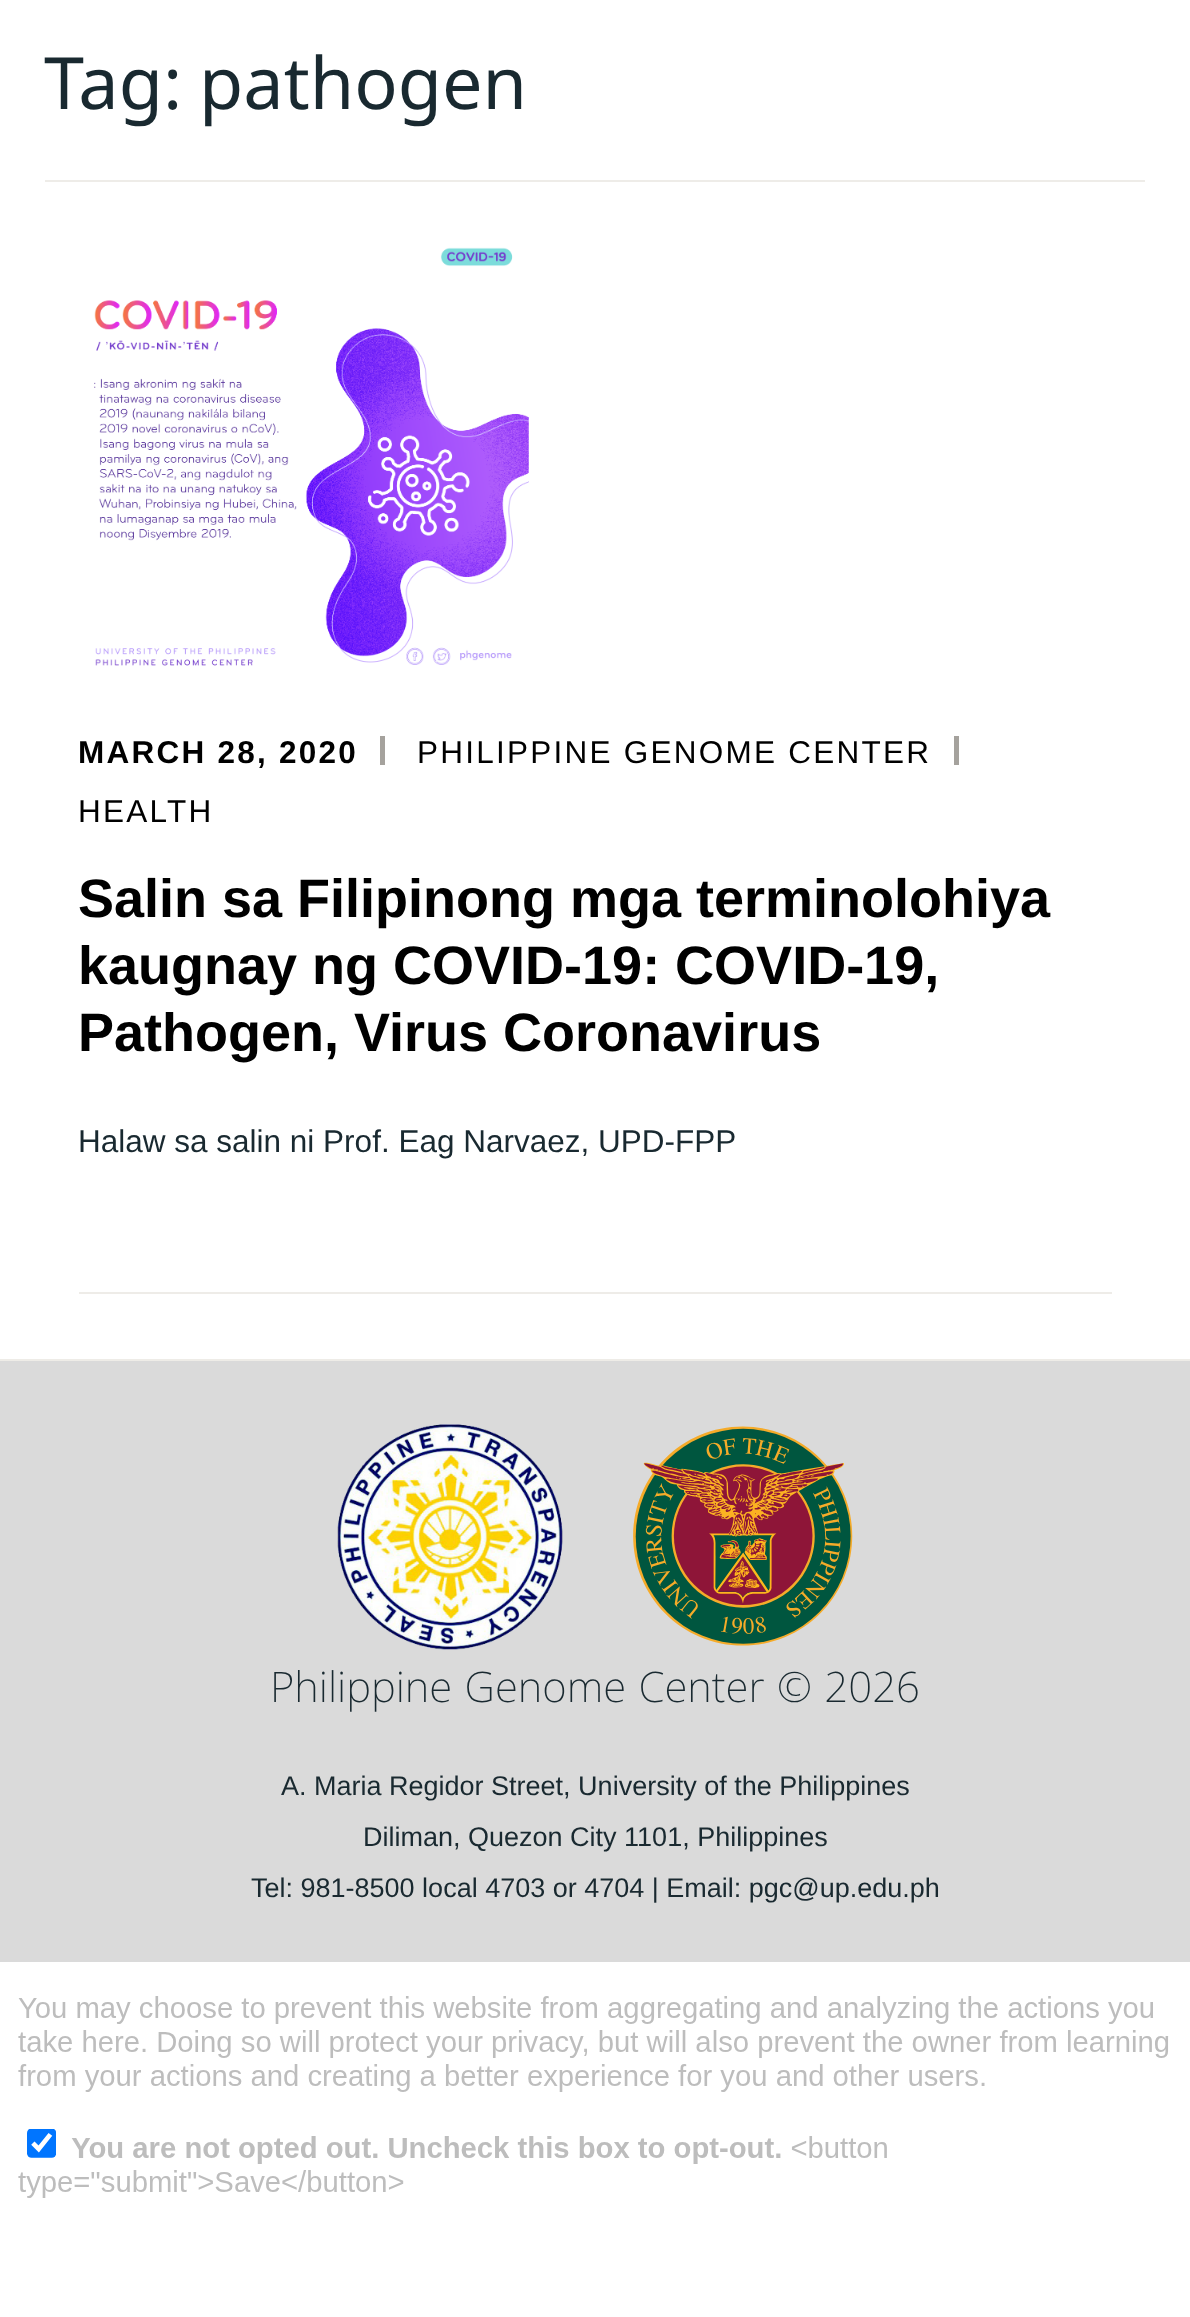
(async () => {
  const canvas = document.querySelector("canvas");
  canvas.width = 1190;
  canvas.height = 2317;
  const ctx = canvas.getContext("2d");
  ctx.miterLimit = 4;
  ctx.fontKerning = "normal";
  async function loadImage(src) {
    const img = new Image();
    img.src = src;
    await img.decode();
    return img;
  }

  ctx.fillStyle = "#ffffff";
  ctx.fillRect(0, 0, 1190, 2317);
  ctx.fillStyle = "#eeece8";
  ctx.fillRect(45, 180, 1100, 2);
  ctx.fillRect(79, 1292, 1033, 2);
  ctx.drawImage(await loadImage("img/1.png"), 94, 247, 435, 419);
  for (const [x, y, w, h, color] of [
    [380, 736, 5, 29, "#a5a29d"],
    [954, 736, 5, 29, "#a5a29d"],
    [0, 1361, 1190, 601, "#dadada"],
    [0, 1359, 1190, 2, "#eeece7"],
  ]) {
    ctx.fillStyle = color;
    ctx.fillRect(x, y, w, h);
  }
  ctx.drawImage(await loadImage("img/2.png"), 337, 1424, 226, 226);
  ctx.drawImage(await loadImage("img/3.png"), 633, 1426, 220, 220);
  ctx.drawImage(await loadImage("img/4.png"), 18, 1996, 1151, 202);
  ctx.font = "72px Noto Sans";
  ctx.fillStyle = "#192930";
  ctx.fillText("Tag:", 44, 109);
  ctx.fillText("pathogen", 199, 109);
  ctx.letterSpacing = "2.25px";
  ctx.font = "bold 31.5px Liberation Sans";
  ctx.fillStyle = "#000000";
  ctx.fillText("MARCH 28, 2020", 78, 763);
  ctx.font = "31.5px Liberation Sans";
  ctx.fillText("PHILIPPINE GENOME CENTER", 417, 763);
  ctx.fillText("HEALTH", 78, 822);
  ctx.letterSpacing = "0px";
  ctx.font = "bold 54px Liberation Sans";
  for (const [text, x, y] of [
    ["Salin sa Filipinong mga terminolohiya", 78, 917],
    ["kaugnay ng COVID-19: COVID-19,", 78, 984],
    ["Pathogen, Virus Coronavirus", 78, 1051],
  ]) {
    ctx.fillText(text, x, y);
  }
  ctx.font = "31.5px Liberation Sans";
  ctx.fillStyle = "#192930";
  ctx.fillText("Halaw sa salin ni Prof. Eag Narvaez, UPD-FPP", 78, 1152);
  ctx.wordSpacing = "1.5px";
  ctx.font = "200 42px Noto Sans";
  ctx.fillText("Philippine Genome Center © 2026", 270, 1702);
  ctx.wordSpacing = "0px";
  ctx.font = "27px Liberation Sans";
  for (const [text, x, y] of [
    ["A. Maria Regidor Street, University of the Philippines", 281, 1795],
    ["Diliman, Quezon City 1101, Philippines", 363, 1846],
    ["Tel: 981-8500 local 4703 or 4704 | Email: pgc@up.edu.ph", 251, 1897],
  ]) {
    ctx.fillText(text, x, y);
  }
})();
